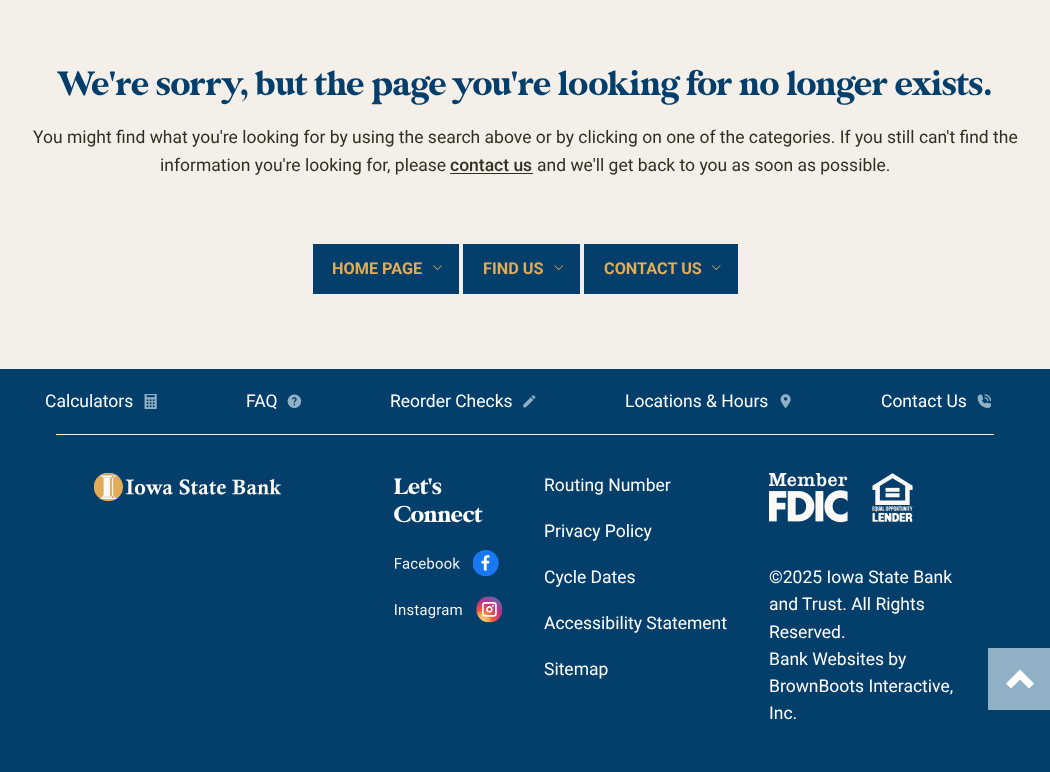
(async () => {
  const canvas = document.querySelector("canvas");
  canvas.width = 1050;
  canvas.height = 772;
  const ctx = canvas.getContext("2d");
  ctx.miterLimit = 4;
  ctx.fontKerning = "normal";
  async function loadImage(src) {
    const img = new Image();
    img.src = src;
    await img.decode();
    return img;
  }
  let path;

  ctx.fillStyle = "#f4f0e9";
  ctx.fillRect(0, 0, 1050, 772);
  ctx.fillStyle = "#332e20";
  ctx.fillRect(450, 173, 83, 1);
  ctx.fillStyle = "#043e6b";
  ctx.fillRect(313, 244, 146, 50);
  ctx.drawImage(await loadImage("img/1.png"), 433, 265, 9, 5);
  ctx.fillRect(463, 244, 117, 50);
  ctx.drawImage(await loadImage("img/2.png"), 554, 265, 9, 5);
  ctx.fillRect(584, 244, 154, 50);
  ctx.drawImage(await loadImage("img/3.png"), 712, 265, 9, 5);
  ctx.fillRect(0, 369, 1050, 403);
  ctx.drawImage(await loadImage("img/4.png"), 144, 394, 13, 15);
  ctx.drawImage(await loadImage("img/5.png"), 287, 394, 15, 14);
  ctx.drawImage(await loadImage("img/6.png"), 523, 395, 13, 13);
  ctx.drawImage(await loadImage("img/7.png"), 780, 394, 11, 15);
  ctx.drawImage(await loadImage("img/8.png"), 977, 394, 15, 14);
  ctx.fillStyle = "#f4f0e9";
  ctx.fillRect(56, 434, 938, 1);
  ctx.drawImage(await loadImage("img/9.png"), 94, 473, 187, 28);
  ctx.drawImage(await loadImage("img/10.png"), 395, 550, 104, 26);
  ctx.drawImage(await loadImage("img/11.png"), 395, 596, 108, 27);
  ctx.drawImage(await loadImage("img/12.png"), 769, 473, 79, 50);
  ctx.drawImage(await loadImage("img/13.png"), 872, 473, 41, 49);
  ctx.fillStyle = "#90b1c5";
  ctx.fillRect(988, 648, 62, 62);
  ctx.fillStyle = "#ffffff";
  path = new Path2D("M1034 683.5L1029 688.5L1020 679.5L1011 688.5L1006 683.5L1020 669.5Z");
  ctx.fill(path);
  ctx.font = "37.5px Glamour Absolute";
  ctx.fillStyle = "#043e6b";
  ctx.fillText("We're sorry, but the page you're looking for no longer exists.", 57, 95);
  ctx.font = "17.5px Roboto";
  ctx.fillStyle = "#332e20";
  ctx.fillText("You might find what you're looking for by using the search above or by clicking on one of the categories. If you still can't find the", 33, 143);
  ctx.fillText("information you're looking for, please", 160, 171);
  ctx.font = "500 17.5px Roboto";
  ctx.fillText("contact us", 450, 171);
  ctx.font = "17.5px Roboto";
  ctx.fillText("and we'll get back to you as soon as possible.", 537, 171);
  ctx.font = "bold 16.25px Roboto";
  ctx.fillStyle = "#e4ac54";
  for (const [text, x, y] of [
    ["HOME PAGE", 332, 274],
    ["FIND US", 483, 274],
    ["CONTACT US", 604, 274],
  ]) {
    ctx.fillText(text, x, y);
  }
  ctx.font = "17.5px Roboto";
  ctx.fillStyle = "#ffffff";
  for (const [text, x, y] of [
    ["Calculators", 45, 407],
    ["FAQ", 246, 407],
    ["Reorder Checks", 390, 407],
    ["Locations & Hours", 625, 407],
    ["Contact Us", 881, 407],
  ]) {
    ctx.fillText(text, x, y);
  }
  ctx.font = "25px Glamour Absolute";
  ctx.fillText("Let's", 394, 494);
  ctx.fillText("Connect", 394, 522);
  ctx.font = "17.5px Roboto";
  for (const [text, x, y] of [
    ["Routing Number", 544, 491],
    ["Privacy Policy", 544, 537],
    ["Cycle Dates", 544, 583],
    ["Accessibility Statement", 544, 629],
    ["Sitemap", 544, 675],
    ["©2025 Iowa State Bank", 769, 583],
    ["and Trust. All Rights", 769, 610],
    ["Reserved.", 769, 638],
    ["Bank Websites by", 769, 665],
    ["BrownBoots Interactive,", 769, 692],
    ["Inc.", 769, 719],
  ]) {
    ctx.fillText(text, x, y);
  }
})();
